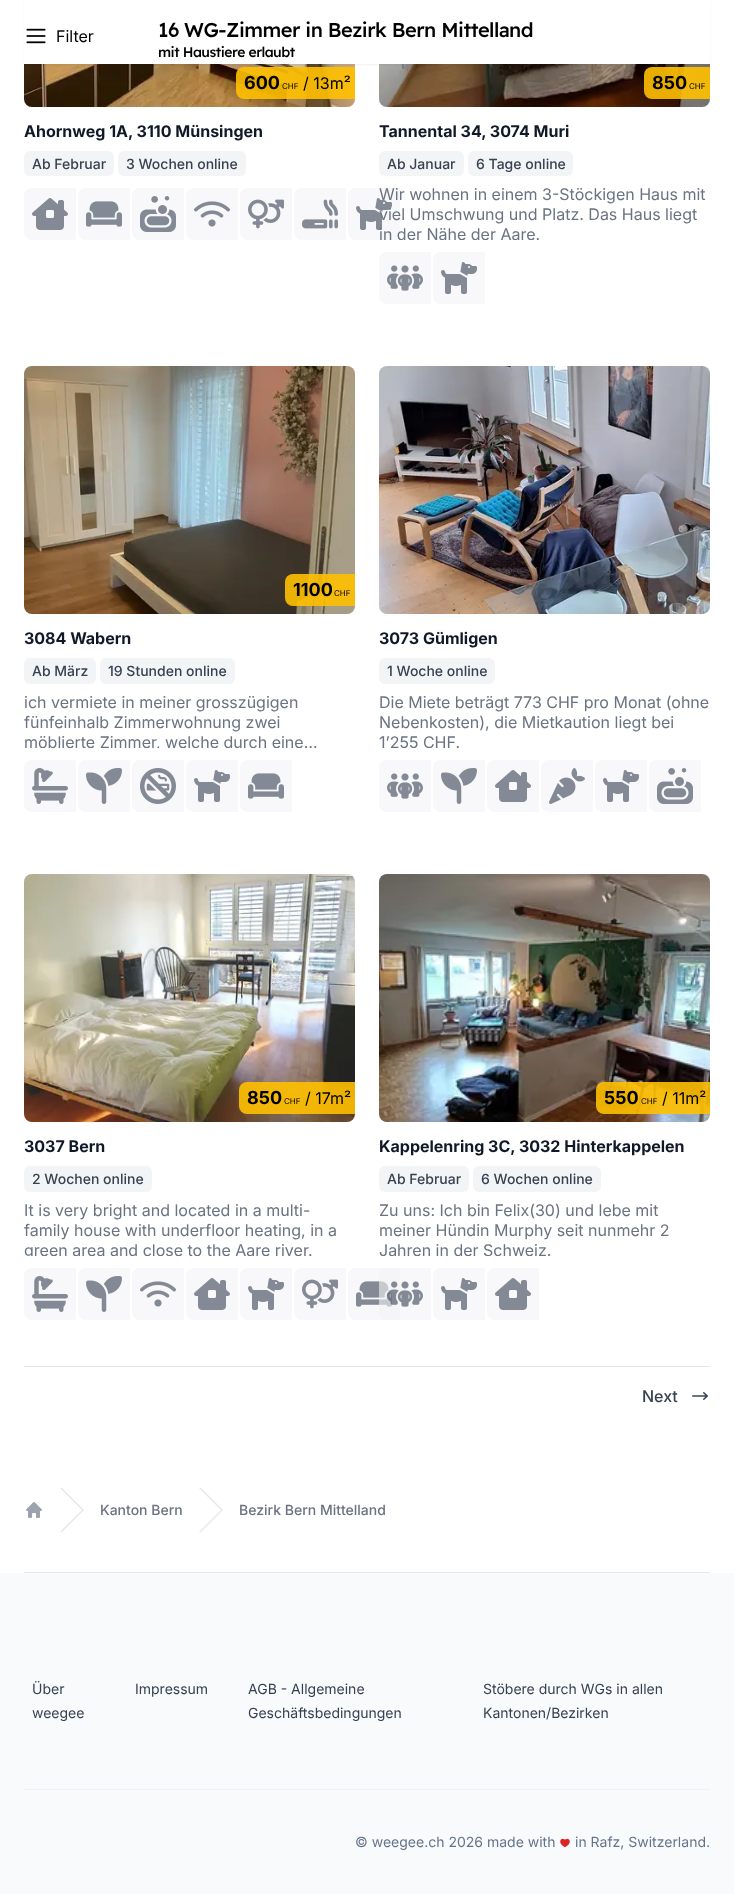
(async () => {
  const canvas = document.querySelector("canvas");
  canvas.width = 734;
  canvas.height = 1894;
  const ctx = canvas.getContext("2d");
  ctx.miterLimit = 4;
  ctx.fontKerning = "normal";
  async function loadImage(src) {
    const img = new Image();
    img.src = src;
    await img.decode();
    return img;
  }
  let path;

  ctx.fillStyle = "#ffffff";
  ctx.fillRect(0, 0, 734, 1894);
  ctx.fillStyle = "#f3f4f6";
  ctx.beginPath();
  ctx.roundRect(24, -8, 331, 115, 8);
  ctx.fill();
  ctx.drawImage(await loadImage("img/2.png"), 24, 64, 331, 43);
  ctx.fillStyle = "rgba(255, 192, 0, 0.9)";
  ctx.beginPath();
  ctx.roundRect(236, 67, 119, 32, [8, 0, 0, 8]);
  ctx.fill();
  ctx.fillStyle = "#f3f4f6";
  ctx.beginPath();
  ctx.roundRect(379, -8, 331, 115, 8);
  ctx.fill();
  ctx.drawImage(await loadImage("img/10.png"), 379, 64, 331, 43);
  ctx.fillStyle = "rgba(255, 192, 0, 0.9)";
  ctx.beginPath();
  ctx.roundRect(644, 67, 66, 32, [8, 0, 0, 8]);
  ctx.fill();
  ctx.fillStyle = "rgba(0, 0, 0, 0.05)";
  ctx.filter = "blur(1px)";
  ctx.beginPath();
  ctx.rect(24, 1, 686, 64);
  ctx.fill();
  ctx.filter = "none";
  ctx.fillStyle = "#ffffff";
  ctx.fillRect(24, 0, 686, 64);
  ctx.drawImage(await loadImage("img/1.png"), 26, 28, 20, 16);
  ctx.fillStyle = "#f3f4f6";
  ctx.beginPath();
  ctx.roundRect(24, 151, 90, 25, 6);
  ctx.fill();
  ctx.beginPath();
  ctx.roundRect(118, 151, 128, 25, 6);
  ctx.fill();
  ctx.fillStyle = "#f8f8fa";
  ctx.beginPath();
  ctx.roundRect(24, 188, 52, 52, [8, 0, 0, 8]);
  ctx.fill();
  ctx.drawImage(await loadImage("img/3.png"), 32, 198, 36, 32);
  ctx.beginPath();
  ctx.roundRect(78, 188, 52, 52, [8, 0, 0, 8]);
  ctx.fill();
  ctx.drawImage(await loadImage("img/4.png"), 86, 201, 36, 26);
  ctx.beginPath();
  ctx.roundRect(132, 188, 52, 52, [8, 0, 0, 8]);
  ctx.fill();
  ctx.drawImage(await loadImage("img/5.png"), 140, 196, 36, 36);
  ctx.beginPath();
  ctx.roundRect(186, 188, 52, 52, [8, 0, 0, 8]);
  ctx.fill();
  ctx.drawImage(await loadImage("img/6.png"), 194, 201, 36, 26);
  ctx.beginPath();
  ctx.roundRect(240, 188, 52, 52, [8, 0, 0, 8]);
  ctx.fill();
  ctx.drawImage(await loadImage("img/7.png"), 248, 199, 36, 30);
  ctx.beginPath();
  ctx.roundRect(294, 188, 52, 52, [8, 0, 0, 8]);
  ctx.fill();
  ctx.drawImage(await loadImage("img/8.png"), 302, 199, 36, 30);
  ctx.beginPath();
  ctx.roundRect(348, 188, 52, 52, [8, 0, 0, 8]);
  ctx.fill();
  ctx.drawImage(await loadImage("img/9.png"), 356, 198, 36, 32);
  ctx.fillStyle = "#f3f4f6";
  ctx.beginPath();
  ctx.roundRect(379, 151, 85, 25, 6);
  ctx.fill();
  ctx.beginPath();
  ctx.roundRect(468, 151, 105, 25, 6);
  ctx.fill();
  ctx.fillStyle = "#f8f8fa";
  ctx.beginPath();
  ctx.roundRect(379, 252, 52, 52, [8, 0, 0, 8]);
  ctx.fill();
  ctx.drawImage(await loadImage("img/11.png"), 387, 265, 36, 26);
  ctx.beginPath();
  ctx.roundRect(433, 252, 52, 52, [8, 0, 0, 8]);
  ctx.fill();
  ctx.drawImage(await loadImage("img/9.png"), 441, 262, 36, 32);
  ctx.fillStyle = "#f3f4f6";
  ctx.beginPath();
  ctx.roundRect(24, 366, 331, 248, 8);
  ctx.fill();
  ctx.drawImage(await loadImage("img/12.png"), 24, 366, 331, 248);
  ctx.fillStyle = "rgba(255, 192, 0, 0.9)";
  ctx.beginPath();
  ctx.roundRect(285, 574, 70, 32, [8, 0, 0, 8]);
  ctx.fill();
  ctx.fillStyle = "#f3f4f6";
  ctx.beginPath();
  ctx.roundRect(24, 658, 72, 26, 6);
  ctx.fill();
  ctx.beginPath();
  ctx.roundRect(100, 658, 135, 26, 6);
  ctx.fill();
  ctx.fillStyle = "#f8f8fa";
  ctx.beginPath();
  ctx.roundRect(24, 760, 52, 52, [8, 0, 0, 8]);
  ctx.fill();
  ctx.drawImage(await loadImage("img/13.png"), 32, 768, 36, 36);
  ctx.beginPath();
  ctx.roundRect(78, 760, 52, 52, [8, 0, 0, 8]);
  ctx.fill();
  ctx.drawImage(await loadImage("img/14.png"), 86, 768, 36, 36);
  ctx.beginPath();
  ctx.roundRect(132, 760, 52, 52, [8, 0, 0, 8]);
  ctx.fill();
  ctx.drawImage(await loadImage("img/15.png"), 140, 768, 36, 36);
  ctx.beginPath();
  ctx.roundRect(186, 760, 52, 52, [8, 0, 0, 8]);
  ctx.fill();
  ctx.drawImage(await loadImage("img/9.png"), 194, 770, 36, 32);
  ctx.beginPath();
  ctx.roundRect(240, 760, 52, 52, [8, 0, 0, 8]);
  ctx.fill();
  ctx.drawImage(await loadImage("img/4.png"), 248, 773, 36, 26);
  ctx.fillStyle = "#f3f4f6";
  ctx.beginPath();
  ctx.roundRect(379, 366, 331, 248, 8);
  ctx.fill();
  ctx.drawImage(await loadImage("img/16.png"), 379, 366, 331, 248);
  ctx.beginPath();
  ctx.roundRect(379, 658, 116, 26, 6);
  ctx.fill();
  ctx.fillStyle = "#f8f8fa";
  ctx.beginPath();
  ctx.roundRect(379, 760, 52, 52, [8, 0, 0, 8]);
  ctx.fill();
  ctx.drawImage(await loadImage("img/11.png"), 387, 773, 36, 26);
  ctx.beginPath();
  ctx.roundRect(433, 760, 52, 52, [8, 0, 0, 8]);
  ctx.fill();
  ctx.drawImage(await loadImage("img/14.png"), 441, 768, 36, 36);
  ctx.beginPath();
  ctx.roundRect(487, 760, 52, 52, [8, 0, 0, 8]);
  ctx.fill();
  ctx.drawImage(await loadImage("img/3.png"), 495, 770, 36, 32);
  ctx.beginPath();
  ctx.roundRect(541, 760, 52, 52, [8, 0, 0, 8]);
  ctx.fill();
  ctx.drawImage(await loadImage("img/17.png"), 549, 768, 36, 36);
  ctx.beginPath();
  ctx.roundRect(595, 760, 52, 52, [8, 0, 0, 8]);
  ctx.fill();
  ctx.drawImage(await loadImage("img/9.png"), 603, 770, 36, 32);
  ctx.beginPath();
  ctx.roundRect(649, 760, 52, 52, [8, 0, 0, 8]);
  ctx.fill();
  ctx.drawImage(await loadImage("img/5.png"), 657, 768, 36, 36);
  ctx.fillStyle = "#f3f4f6";
  ctx.beginPath();
  ctx.roundRect(24, 874, 331, 248, 8);
  ctx.fill();
  ctx.drawImage(await loadImage("img/18.png"), 24, 874, 331, 248);
  ctx.fillStyle = "rgba(255, 192, 0, 0.9)";
  ctx.beginPath();
  ctx.roundRect(239, 1082, 116, 32, [8, 0, 0, 8]);
  ctx.fill();
  ctx.fillStyle = "#f3f4f6";
  ctx.beginPath();
  ctx.roundRect(24, 1166, 128, 26, 6);
  ctx.fill();
  ctx.fillStyle = "#f8f8fa";
  ctx.beginPath();
  ctx.roundRect(24, 1268, 52, 52, [8, 0, 0, 8]);
  ctx.fill();
  ctx.drawImage(await loadImage("img/13.png"), 32, 1276, 36, 36);
  ctx.beginPath();
  ctx.roundRect(78, 1268, 52, 52, [8, 0, 0, 8]);
  ctx.fill();
  ctx.drawImage(await loadImage("img/14.png"), 86, 1276, 36, 36);
  ctx.beginPath();
  ctx.roundRect(132, 1268, 52, 52, [8, 0, 0, 8]);
  ctx.fill();
  ctx.drawImage(await loadImage("img/6.png"), 140, 1281, 36, 26);
  ctx.beginPath();
  ctx.roundRect(186, 1268, 52, 52, [8, 0, 0, 8]);
  ctx.fill();
  ctx.drawImage(await loadImage("img/3.png"), 194, 1278, 36, 32);
  ctx.beginPath();
  ctx.roundRect(240, 1268, 52, 52, [8, 0, 0, 8]);
  ctx.fill();
  ctx.drawImage(await loadImage("img/9.png"), 248, 1278, 36, 32);
  ctx.beginPath();
  ctx.roundRect(294, 1268, 52, 52, [8, 0, 0, 8]);
  ctx.fill();
  ctx.drawImage(await loadImage("img/7.png"), 302, 1279, 36, 30);
  ctx.beginPath();
  ctx.roundRect(348, 1268, 52, 52, [8, 0, 0, 8]);
  ctx.fill();
  ctx.drawImage(await loadImage("img/4.png"), 356, 1281, 36, 26);
  ctx.fillStyle = "#f3f4f6";
  ctx.beginPath();
  ctx.roundRect(379, 874, 331, 248, 8);
  ctx.fill();
  ctx.drawImage(await loadImage("img/19.png"), 379, 874, 331, 248);
  ctx.fillStyle = "rgba(255, 192, 0, 0.9)";
  ctx.beginPath();
  ctx.roundRect(596, 1082, 114, 32, [8, 0, 0, 8]);
  ctx.fill();
  ctx.fillStyle = "#f3f4f6";
  ctx.beginPath();
  ctx.roundRect(379, 1166, 90, 26, 6);
  ctx.fill();
  ctx.beginPath();
  ctx.roundRect(473, 1166, 128, 26, 6);
  ctx.fill();
  ctx.fillStyle = "rgba(243, 244, 246, 0.6)";
  ctx.beginPath();
  ctx.roundRect(379, 1268, 52, 52, [8, 0, 0, 8]);
  ctx.fill();
  ctx.drawImage(await loadImage("img/20.png"), 387, 1281, 36, 26);
  ctx.fillStyle = "#f8f8fa";
  ctx.beginPath();
  ctx.roundRect(433, 1268, 52, 52, [8, 0, 0, 8]);
  ctx.fill();
  ctx.drawImage(await loadImage("img/9.png"), 441, 1278, 36, 32);
  ctx.beginPath();
  ctx.roundRect(487, 1268, 52, 52, [8, 0, 0, 8]);
  ctx.fill();
  ctx.drawImage(await loadImage("img/3.png"), 495, 1278, 36, 32);
  ctx.fillStyle = "#e5e7eb";
  ctx.fillRect(24, 1366, 686, 1);
  ctx.drawImage(await loadImage("img/21.png"), 692, 1392, 16, 8);
  ctx.fillRect(24, 1572, 686, 1);
  ctx.drawImage(await loadImage("img/22.png"), 26, 1502, 16, 16);
  path = new Path2D("M60 1488L82 1510L60 1532H62L84 1510L62 1488Z");
  ctx.fill(path);
  path = new Path2D("M199 1488L221 1510L199 1532H201L223 1510L201 1488Z");
  ctx.fill(path);
  ctx.fillStyle = "#f8fafc";
  ctx.fillRect(0, 1573, 734, 321);
  ctx.fillStyle = "#eef1f5";
  ctx.fillRect(24, 1789, 686, 1);
  ctx.drawImage(await loadImage("img/23.png"), 560, 1838, 10, 10);
  ctx.font = "16px Inter";
  ctx.fillStyle = "#000000";
  ctx.fillText("Filter", 56, 42);
  ctx.letterSpacing = "-0.5px";
  ctx.font = "500 20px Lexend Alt";
  ctx.fillText("16 WG-Zimmer in Bezirk Bern Mittelland", 158, 37);
  ctx.font = "500 14px Lexend";
  ctx.fillText("mit Haustiere erlaubt", 158, 57);
  ctx.letterSpacing = "0px";
  ctx.font = "bold 18px Inter";
  ctx.fillText("600", 244, 89);
  ctx.font = "8px Inter";
  ctx.fillText("CHF", 282, 89);
  ctx.font = "16px Inter";
  ctx.fillText("/ 13m²", 303, 89);
  ctx.font = "bold 16px Inter";
  ctx.fillStyle = "#111827";
  ctx.fillText("Ahornweg 1A, 3110 Münsingen", 24, 137);
  ctx.font = "500 14px Inter";
  ctx.fillStyle = "#374151";
  ctx.fillText("Ab Februar", 32, 169);
  ctx.fillText("3 Wochen online", 126, 169);
  ctx.font = "bold 18px Inter";
  ctx.fillStyle = "#000000";
  ctx.fillText("850", 652, 89);
  ctx.font = "8px Inter";
  ctx.fillText("CHF", 689, 89);
  ctx.font = "bold 16px Inter";
  ctx.fillStyle = "#111827";
  ctx.fillText("Tannental 34, 3074 Muri", 379, 137);
  ctx.font = "500 14px Inter";
  ctx.fillStyle = "#374151";
  ctx.fillText("Ab Januar", 387, 169);
  ctx.fillText("6 Tage online", 476, 169);
  ctx.font = "16px Inter";
  ctx.fillStyle = "#6b7280";
  ctx.fillText("Wir wohnen in einem 3-Stöckigen Haus mit", 379, 200);
  ctx.fillText("viel Umschwung und Platz. Das Haus liegt", 379, 220);
  ctx.save();
  ctx.beginPath();
  ctx.rect(379, 184, 331, 56);
  ctx.clip();
  ctx.fillText("in der Nähe der Aare.", 379, 240);
  ctx.restore();
  ctx.font = "bold 18px Inter";
  ctx.fillStyle = "#000000";
  ctx.fillText("1100", 293, 596);
  ctx.font = "8px Inter";
  ctx.fillText("CHF", 334, 596);
  ctx.font = "bold 16px Inter";
  ctx.fillStyle = "#111827";
  ctx.fillText("3084 Wabern", 24, 644);
  ctx.font = "500 14px Inter";
  ctx.fillStyle = "#374151";
  ctx.fillText("Ab März", 32, 676);
  ctx.fillText("19 Stunden online", 108, 676);
  ctx.font = "16px Inter";
  ctx.fillStyle = "#6b7280";
  ctx.fillText("ich vermiete in meiner grosszügigen", 24, 708);
  ctx.fillText("fünfeinhalb Zimmerwohnung zwei", 24, 728);
  ctx.save();
  ctx.beginPath();
  ctx.rect(24, 692, 331, 56);
  ctx.clip();
  ctx.fillText("möblierte Zimmer, welche durch eine…", 24, 748);
  ctx.restore();
  ctx.font = "bold 16px Inter";
  ctx.fillStyle = "#111827";
  ctx.fillText("3073 Gümligen", 379, 644);
  ctx.font = "500 14px Inter";
  ctx.fillStyle = "#374151";
  ctx.fillText("1 Woche online", 387, 676);
  ctx.font = "16px Inter";
  ctx.fillStyle = "#6b7280";
  ctx.fillText("Die Miete beträgt 773 CHF pro Monat (ohne", 379, 708);
  ctx.fillText("Nebenkosten), die Mietkaution liegt bei", 379, 728);
  ctx.save();
  ctx.beginPath();
  ctx.rect(379, 692, 331, 56);
  ctx.clip();
  ctx.fillText("1’255 CHF.", 379, 748);
  ctx.restore();
  ctx.font = "bold 18px Inter";
  ctx.fillStyle = "#000000";
  ctx.fillText("850", 247, 1104);
  ctx.font = "8px Inter";
  ctx.fillText("CHF", 284, 1104);
  ctx.font = "16px Inter";
  ctx.fillText("/ 17", 305, 1104);
  ctx.fillText("m²", 330, 1104);
  ctx.font = "bold 16px Inter";
  ctx.fillStyle = "#111827";
  ctx.fillText("3037 Bern", 24, 1152);
  ctx.font = "500 14px Inter";
  ctx.fillStyle = "#374151";
  ctx.fillText("2 Wochen online", 32, 1184);
  ctx.font = "16px Inter";
  ctx.fillStyle = "#6b7280";
  ctx.fillText("It is very bright and located in a multi-", 24, 1216);
  ctx.fillText("family house with underfloor heating, in a", 24, 1236);
  ctx.save();
  ctx.beginPath();
  ctx.rect(24, 1200, 331, 56);
  ctx.clip();
  ctx.fillText("green area and close to the Aare river.", 24, 1256);
  ctx.restore();
  ctx.font = "bold 18px Inter";
  ctx.fillStyle = "#000000";
  ctx.fillText("550", 604, 1104);
  ctx.font = "8px Inter";
  ctx.fillText("CHF", 641, 1104);
  ctx.font = "16px Inter";
  ctx.fillText("/ 11m²", 662, 1104);
  ctx.font = "bold 16px Inter";
  ctx.fillStyle = "#111827";
  ctx.fillText("Kappelenring 3C, 3032 Hinterkappelen", 379, 1152);
  ctx.font = "500 14px Inter";
  ctx.fillStyle = "#374151";
  ctx.fillText("Ab Februar", 387, 1184);
  ctx.fillText("6 Wochen online", 481, 1184);
  ctx.font = "16px Inter";
  ctx.fillStyle = "#6b7280";
  ctx.fillText("Zu uns: Ich bin Felix(30) und lebe mit", 379, 1216);
  ctx.fillText("meiner Hündin Murphy seit nunmehr 2", 379, 1236);
  ctx.save();
  ctx.beginPath();
  ctx.rect(379, 1200, 331, 56);
  ctx.clip();
  ctx.fillText("Jahren in der Schweiz.", 379, 1256);
  ctx.restore();
  ctx.font = "500 16px Inter";
  ctx.fillStyle = "#374151";
  ctx.fillText("Next", 642, 1402);
  ctx.font = "500 14px Inter";
  ctx.fillStyle = "#6b7280";
  ctx.fillText("Kanton Bern", 100, 1515);
  ctx.fillText("Bezirk Bern Mittelland", 239, 1515);
  ctx.font = "14px Inter";
  ctx.fillStyle = "#374151";
  for (const [text, x, y] of [
    ["Über", 32, 1694],
    ["weegee", 32, 1718],
    ["Impressum", 135, 1694],
    ["AGB - Allgemeine", 248, 1694],
    ["Geschäftsbedingungen", 248, 1718],
    ["Stöbere durch WGs in allen", 483, 1694],
    ["Kantonen/Bezirken", 483, 1718],
  ]) {
    ctx.fillText(text, x, y);
  }
  ctx.fillStyle = "#64748b";
  ctx.fillText("© weegee.ch 2026 made with", 355, 1847);
  ctx.fillText("in Rafz, Switzerland.", 575, 1847);
})();
